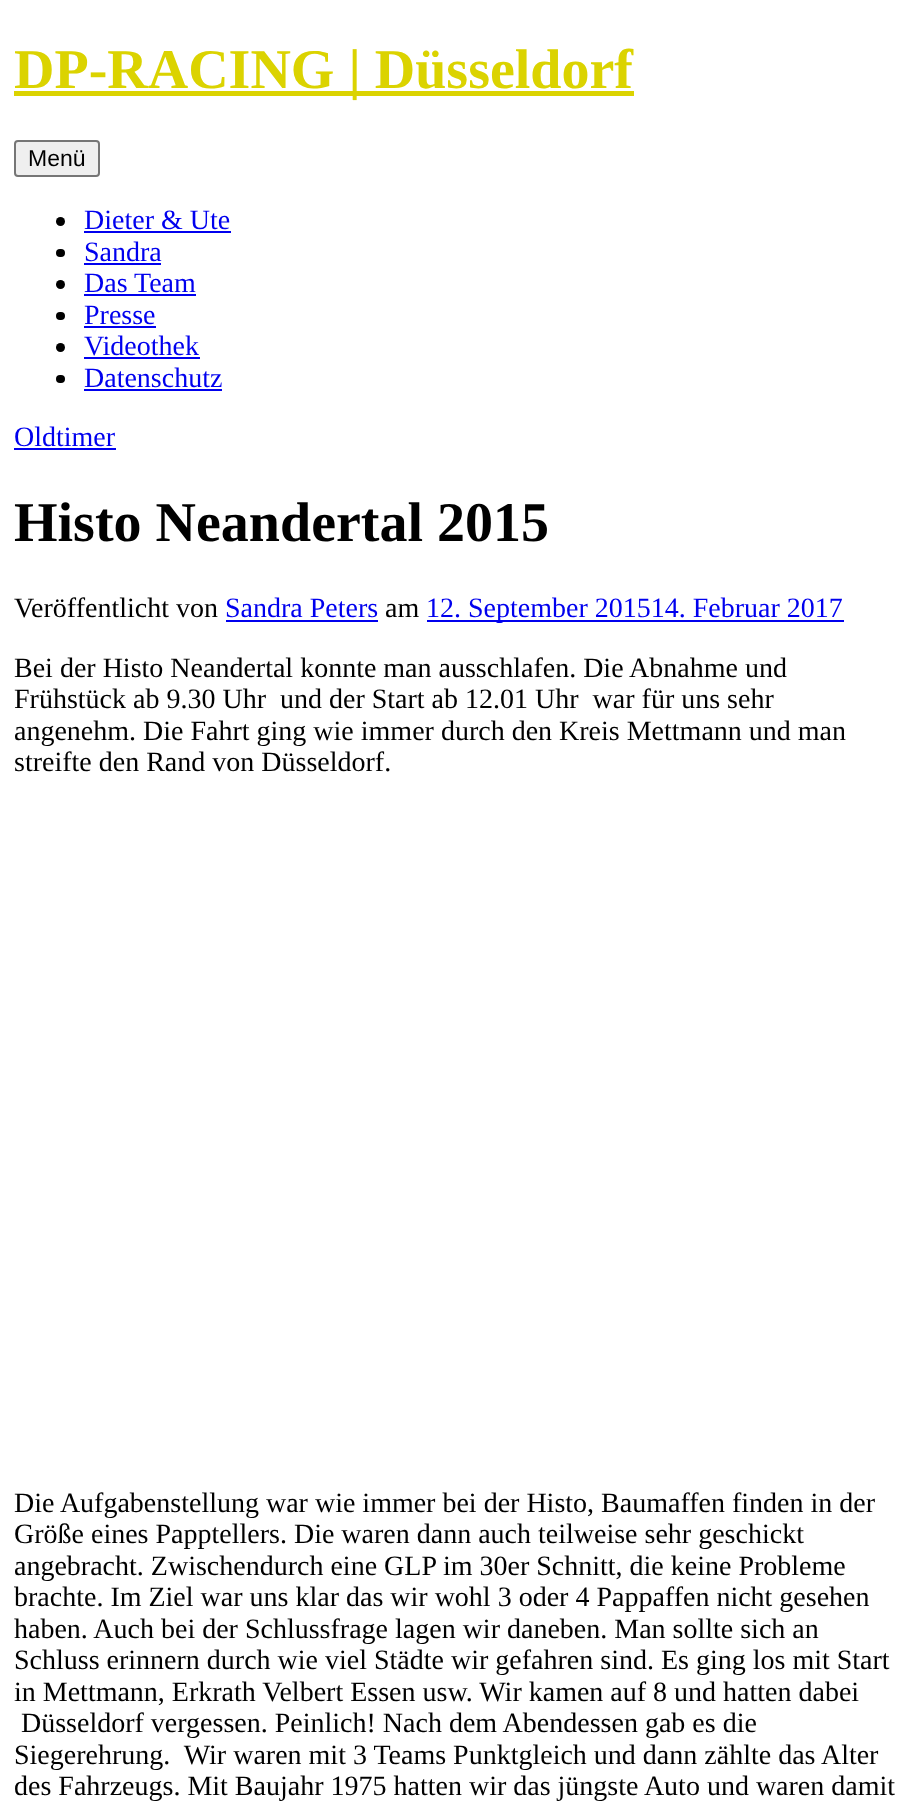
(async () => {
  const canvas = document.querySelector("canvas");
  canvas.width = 910;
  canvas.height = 1811;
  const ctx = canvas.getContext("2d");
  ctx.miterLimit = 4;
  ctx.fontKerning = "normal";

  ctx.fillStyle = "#ffffff";
  ctx.fillRect(0, 0, 910, 1811);
  ctx.fillStyle = "#dbd300";
  ctx.fillRect(14, 91, 620, 5);
  ctx.fillStyle = "#efefef";
  ctx.beginPath();
  ctx.roundRect(15, 141, 84, 35, 3);
  ctx.fill();
  ctx.strokeStyle = "#767676";
  ctx.lineWidth = 2;
  ctx.stroke();
  ctx.fillStyle = "#000000";
  ctx.beginPath();
  ctx.arc(60.5, 221.5, 4.5, 0, Math.PI * 2);
  ctx.fill();
  ctx.fillStyle = "#0000ee";
  ctx.fillRect(84, 231, 147, 2);
  ctx.fillStyle = "#000000";
  ctx.beginPath();
  ctx.roundRect(56, 249, 9, 8, 4);
  ctx.fill();
  ctx.fillStyle = "#0000ee";
  ctx.fillRect(84, 263, 77, 2);
  ctx.fillStyle = "#000000";
  ctx.beginPath();
  ctx.arc(60.5, 284.5, 4.5, 0, Math.PI * 2);
  ctx.fill();
  ctx.fillStyle = "#0000ee";
  ctx.fillRect(84, 294, 112, 2);
  ctx.fillStyle = "#000000";
  ctx.beginPath();
  ctx.roundRect(56, 312, 9, 8, 4);
  ctx.fill();
  ctx.fillStyle = "#0000ee";
  ctx.fillRect(84, 326, 72, 2);
  ctx.fillStyle = "#000000";
  ctx.beginPath();
  ctx.arc(60.5, 347.5, 4.5, 0, Math.PI * 2);
  ctx.fill();
  ctx.fillStyle = "#0000ee";
  ctx.fillRect(84, 357, 116, 2);
  ctx.fillStyle = "#000000";
  ctx.beginPath();
  ctx.roundRect(56, 375, 9, 8, 4);
  ctx.fill();
  for (const [x, y, w, h, color] of [
    [84, 389, 138, 2, "#0000ee"],
    [14, 448, 102, 2, "#0000ee"],
    [226, 620, 152, 2, "#0000ee"],
    [427, 620, 417, 2, "#0000ee"],
  ]) {
    ctx.fillStyle = color;
    ctx.fillRect(x, y, w, h);
  }
  ctx.font = "bold 56px Liberation Serif";
  ctx.fillStyle = "#dbd300";
  ctx.fillText("DP-RACING | Düsseldorf", 14, 88);
  ctx.font = "23px Liberation Sans";
  ctx.fillStyle = "#000000";
  ctx.fillText("Menü", 28, 166);
  ctx.font = "28px Liberation Serif";
  ctx.fillStyle = "#0000ee";
  for (const [text, x, y] of [
    ["Dieter & Ute", 84, 229],
    ["Sandra", 84, 261],
    ["Das Team", 84, 292],
    ["Presse", 84, 324],
    ["Videothek", 84, 355],
    ["Datenschutz", 84, 387],
    ["Oldtimer", 14, 446],
  ]) {
    ctx.fillText(text, x, y);
  }
  ctx.font = "bold 56px Liberation Serif";
  ctx.fillStyle = "#000000";
  ctx.fillText("Histo Neandertal 2015", 14, 541);
  ctx.font = "28px Liberation Serif";
  ctx.fillText("Veröffentlicht von", 14, 617);
  ctx.fillStyle = "#0000ee";
  ctx.fillText("Sandra Peters", 225, 617);
  ctx.fillStyle = "#000000";
  ctx.fillText("am", 385, 617);
  ctx.fillStyle = "#0000ee";
  ctx.fillText("12. September 201514. Februar 2017", 426, 617);
  ctx.fillStyle = "#000000";
  for (const [text, x, y] of [
    ["Bei der Histo Neandertal konnte man ausschlafen. Die Abnahme und", 14, 677],
    ["Frühstück ab 9.30 Uhr  und der Start ab 12.01 Uhr  war für uns sehr", 14, 708],
    ["angenehm. Die Fahrt ging wie immer durch den Kreis Mettmann und man", 14, 740],
    ["streifte den Rand von Düsseldorf.", 14, 771],
    ["Die Aufgabenstellung war wie immer bei der Histo, Baumaffen finden in der", 14, 1512],
    ["Größe eines Papptellers. Die waren dann auch teilweise sehr geschickt", 14, 1543],
    ["angebracht. Zwischendurch eine GLP im 30er Schnitt, die keine Probleme", 14, 1575],
    ["brachte. Im Ziel war uns klar das wir wohl 3 oder 4 Pappaffen nicht gesehen", 14, 1606],
    ["haben. Auch bei der Schlussfrage lagen wir daneben. Man sollte sich an", 14, 1638],
    ["Schluss erinnern durch wie viel Städte wir gefahren sind. Es ging los mit Start", 14, 1669],
    ["in Mettmann, Erkrath Velbert Essen usw. Wir kamen auf 8 und hatten dabei", 14, 1701],
    ["Düsseldorf vergessen. Peinlich! Nach dem Abendessen gab es die", 21, 1732],
    ["Siegerehrung.  Wir waren mit 3 Teams Punktgleich und dann zählte das Alter", 14, 1764],
    ["des Fahrzeugs. Mit Baujahr 1975 hatten wir das jüngste Auto und waren damit", 14, 1795],
  ]) {
    ctx.fillText(text, x, y);
  }
})();
